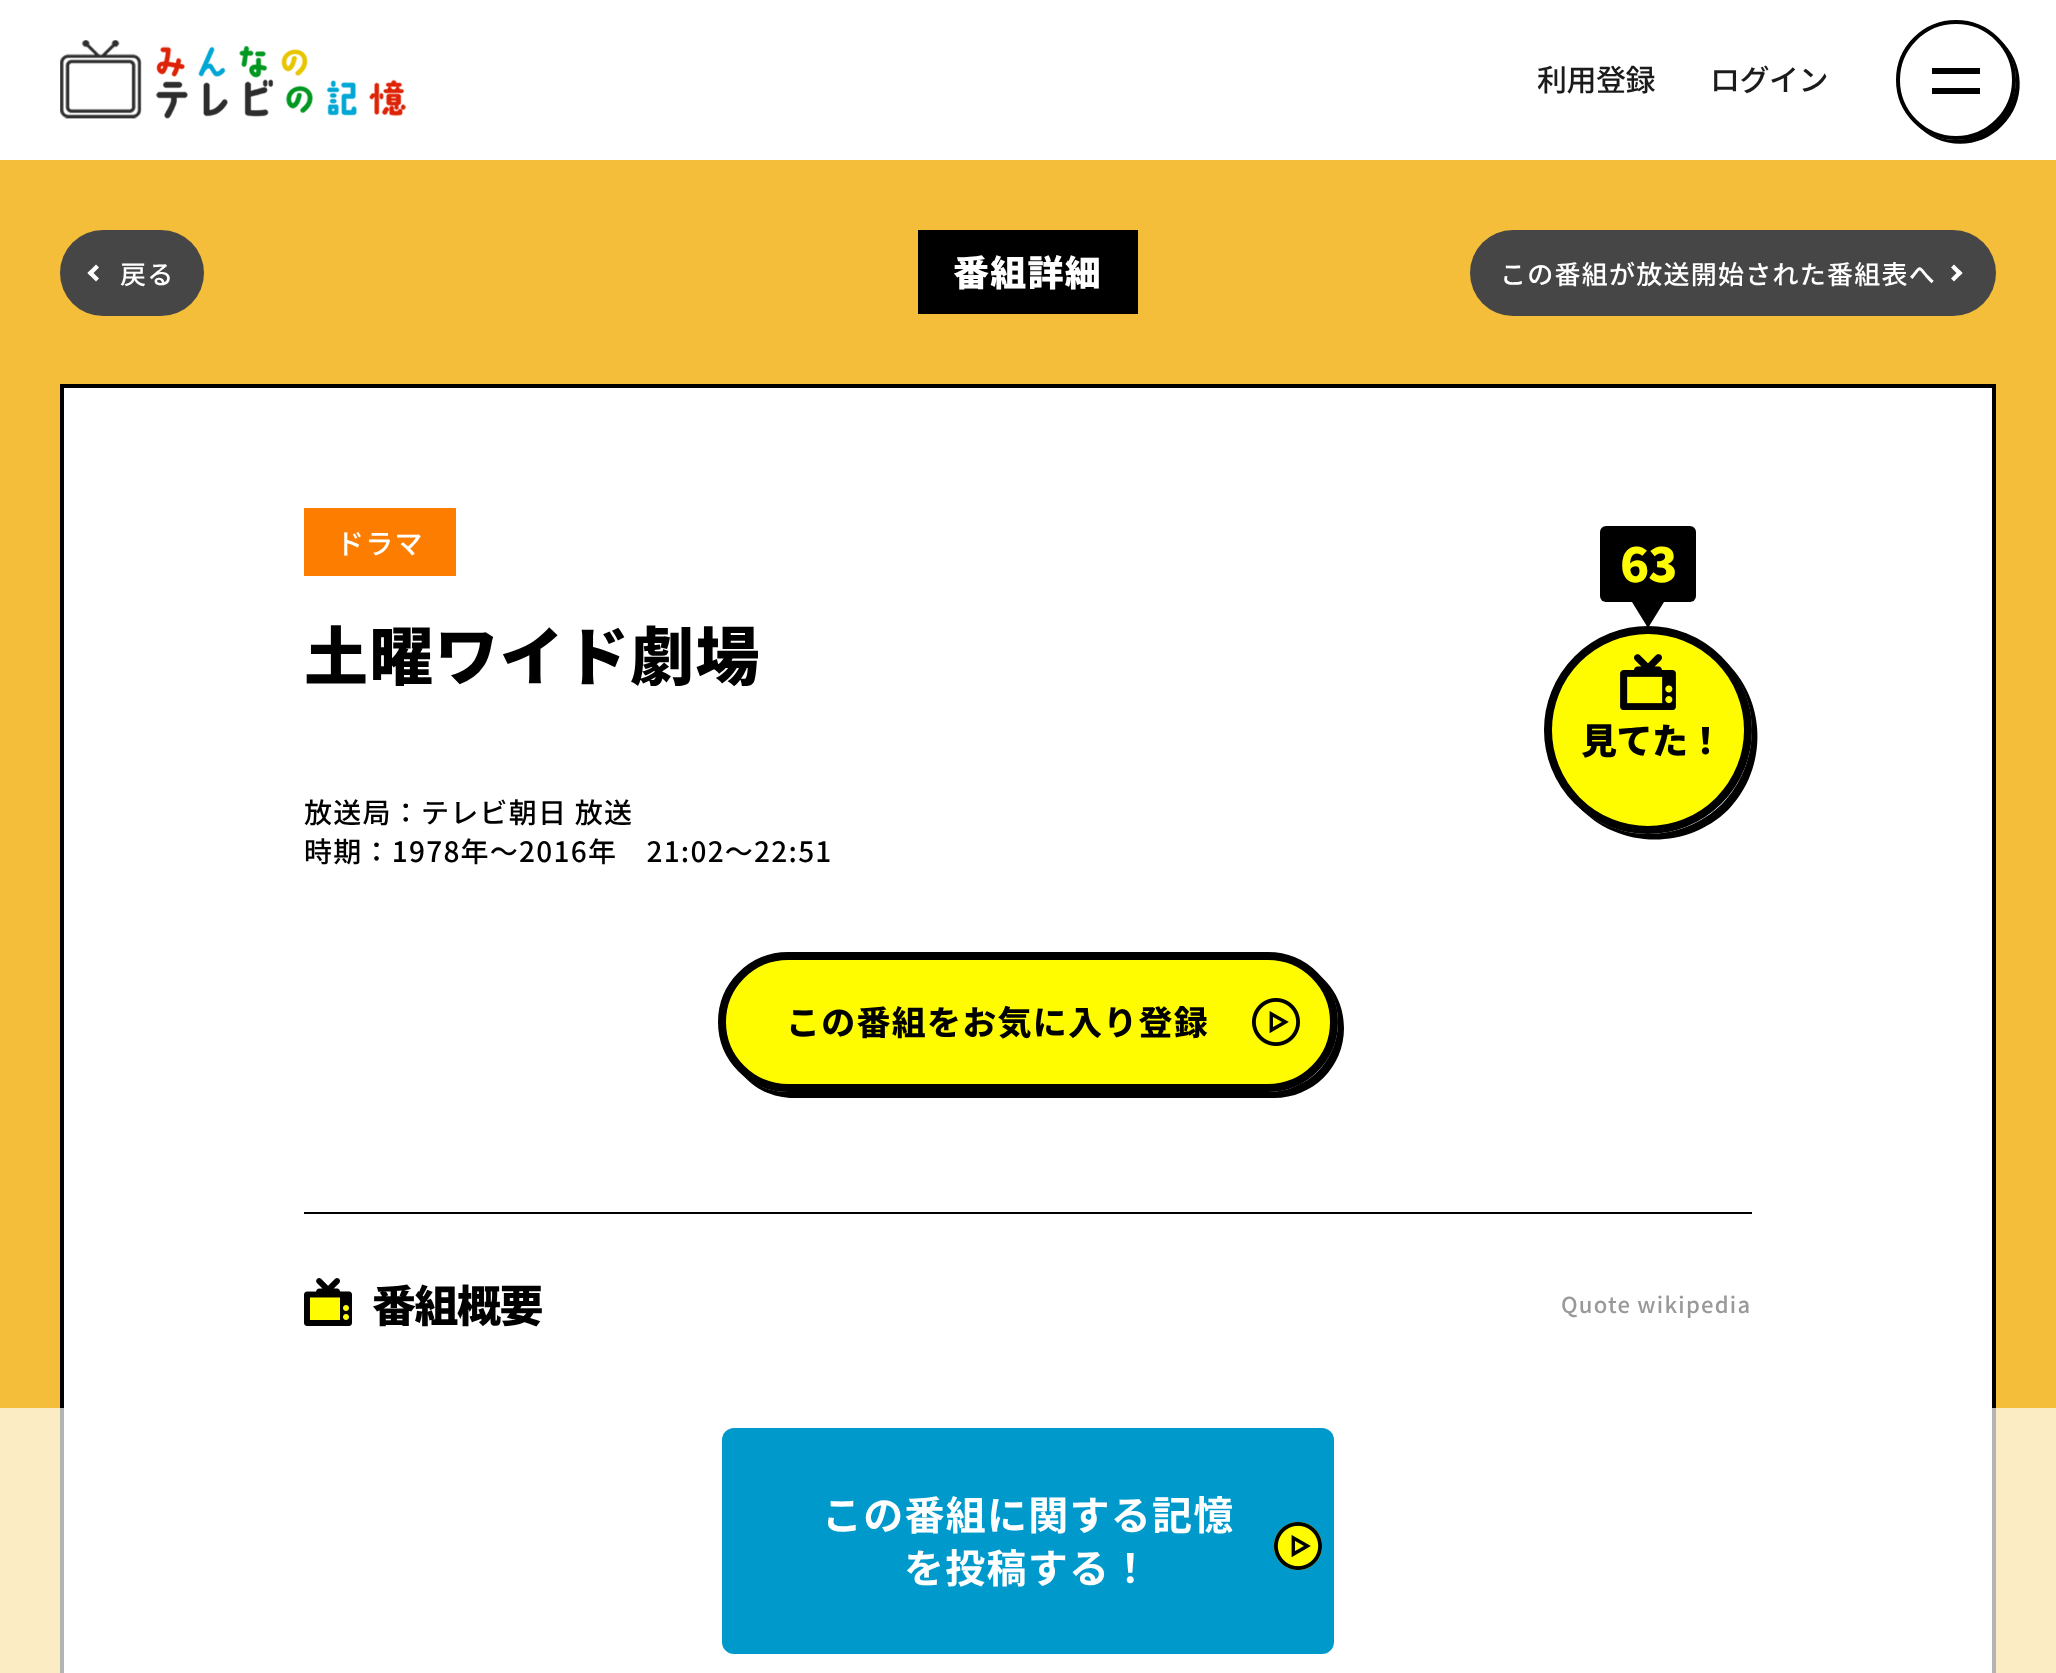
(async () => {
  const canvas = document.querySelector("canvas");
  canvas.width = 2056;
  canvas.height = 1673;
  const ctx = canvas.getContext("2d");
  ctx.miterLimit = 4;
  ctx.fontKerning = "normal";
  async function loadImage(src) {
    const img = new Image();
    img.src = src;
    await img.decode();
    return img;
  }
  let path;

  ctx.fillStyle = "#ffffff";
  ctx.fillRect(0, 0, 2056, 1673);
  ctx.drawImage(await loadImage("img/1.png"), 60, 40, 346, 79);
  ctx.fillStyle = "#000000";
  path = new Path2D("M1916 124C1938 149 1978 151 2002 126C2027 102 2025 62 2000 40C2022 63 2021 100 1998 122C1976 145 1939 146 1916 124Z");
  ctx.fill(path);
  ctx.fillStyle = "#ffffff";
  ctx.beginPath();
  ctx.arc(1956, 80, 58, 0, Math.PI * 2);
  ctx.fill();
  ctx.strokeStyle = "#000000";
  ctx.lineWidth = 4;
  ctx.stroke();
  for (const [x, y, w, h, color] of [
    [1932, 68, 48, 6, "#000000"],
    [1932, 88, 48, 6, "#000000"],
    [0, 160, 2056, 1513, "#f5be3a"],
  ]) {
    ctx.fillStyle = color;
    ctx.fillRect(x, y, w, h);
  }
  ctx.fillStyle = "#464646";
  ctx.beginPath();
  ctx.roundRect(60, 230, 144, 86, 43);
  ctx.fill();
  ctx.fillStyle = "#ffffff";
  path = new Path2D("M90.5 270L99 278.5L96 281.5L87.5 273Z");
  ctx.fill(path);
  path = new Path2D("M96 264.5L99 267.5L90.5 276L87.5 273Z");
  ctx.fill(path);
  ctx.fillStyle = "#000000";
  ctx.fillRect(918, 230, 220, 84);
  ctx.fillStyle = "#464646";
  ctx.beginPath();
  ctx.roundRect(1470, 230, 526, 86, 43);
  ctx.fill();
  ctx.fillStyle = "#ffffff";
  path = new Path2D("M1954 264.5L1962.5 273L1959.5 276L1951 267.5Z");
  ctx.fill(path);
  path = new Path2D("M1959.5 270L1962.5 273L1954 281.5L1951 278.5Z");
  ctx.fill(path);
  ctx.beginPath();
  ctx.rect(62, 386, 1932, 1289);
  ctx.fill();
  ctx.stroke();
  ctx.fillStyle = "#fd7d00";
  ctx.fillRect(304, 508, 152, 68);
  ctx.fillStyle = "#000000";
  ctx.beginPath();
  ctx.roundRect(1600, 526, 96, 76, 6);
  ctx.fill();
  path = new Path2D("M1578 806C1617 849 1686 851 1728 810C1769 768 1767 699 1724 660C1762 700 1761 764 1722 804C1682 843 1618 844 1578 806Z");
  ctx.fill(path);
  ctx.fillStyle = "#fffc00";
  ctx.beginPath();
  ctx.arc(1648, 730, 100, 0, Math.PI * 2);
  ctx.fill();
  ctx.lineWidth = 8;
  ctx.stroke();
  ctx.fillStyle = "#000000";
  path = new Path2D("M1632 602H1664L1648 628Z");
  ctx.fill(path);
  ctx.drawImage(await loadImage("img/2.png"), 1620, 654, 56, 56);
  path = new Path2D("M742 1074C754 1089 773 1098 794 1098H1274C1313 1098 1344 1067 1344 1028C1344 1007 1335 988 1320 976C1331 988 1338 1004 1338 1022C1338 1061 1307 1092 1268 1092H788C770 1092 754 1085 742 1074Z");
  ctx.fill(path);
  ctx.fillStyle = "#fffc00";
  ctx.beginPath();
  ctx.roundRect(722, 956, 612, 132, 66);
  ctx.fill();
  ctx.stroke();
  ctx.drawImage(await loadImage("img/3.png"), 1252, 998, 48, 48);
  ctx.fillStyle = "#000000";
  ctx.fillRect(304, 1212, 1448, 2);
  ctx.drawImage(await loadImage("img/4.png"), 304, 1278, 48, 48);
  ctx.fillStyle = "rgba(255, 255, 255, 0.7)";
  ctx.fillRect(0, 1408, 2056, 265);
  ctx.fillStyle = "#0099cb";
  ctx.beginPath();
  ctx.roundRect(722, 1428, 612, 226, 12);
  ctx.fill();
  ctx.drawImage(await loadImage("img/5.png"), 1274, 1522, 48, 48);
  ctx.letterSpacing = "-0.5px";
  ctx.font = "500 30px Noto Sans JP";
  ctx.fillStyle = "#1b1b1b";
  ctx.fillText("利用登録", 1537, 91);
  ctx.fillText("ログイン", 1710, 91);
  ctx.letterSpacing = "1.25px";
  ctx.font = "500 26px Noto Sans JP";
  ctx.fillStyle = "#ffffff";
  ctx.fillText("戻る", 120, 284);
  ctx.font = "900 36px Noto Sans JP";
  ctx.fillText("番組詳細", 953, 286);
  ctx.font = "500 26px Noto Sans JP";
  ctx.fillText("この番組が放送開始された番組表へ", 1500, 284);
  ctx.font = "500 28px Noto Sans JP";
  ctx.fillText("ドラマ", 336, 554);
  ctx.font = "900 64px Noto Sans JP";
  ctx.fillStyle = "#000000";
  ctx.fillText("土曜ワイド劇場", 304, 680);
  ctx.font = "500 28px Noto Sans JP";
  ctx.fillText("放送局：テレビ朝日 放送", 304, 823);
  ctx.fillText("時期：1978年〜2016年　21:02～22:51", 304, 862);
  ctx.letterSpacing = "-1px";
  ctx.font = "900 48px Noto Sans JP";
  ctx.fillStyle = "#fffc00";
  ctx.fillText("63", 1620, 582);
  ctx.letterSpacing = "-0.5px";
  ctx.font = "900 36px Noto Sans JP";
  ctx.fillStyle = "#000000";
  ctx.fillText("見てた！", 1581, 754);
  ctx.letterSpacing = "1.25px";
  ctx.font = "800 34px Noto Sans JP";
  ctx.fillText("この番組をお気に入り登録", 786, 1035);
  ctx.letterSpacing = "-1.5px";
  ctx.font = "900 44px Noto Sans JP";
  ctx.fillText("番組概要", 372, 1322);
  ctx.letterSpacing = "1.25px";
  ctx.font = "500 22px Noto Sans JP";
  ctx.fillStyle = "#999999";
  ctx.fillText("Quote wikipedia", 1561, 1313);
  ctx.font = "bold 40px Noto Sans JP";
  ctx.fillStyle = "#ffffff";
  ctx.fillText("この番組に関する記憶", 822, 1530);
  ctx.fillText("を投稿する！", 904, 1583);
})();
